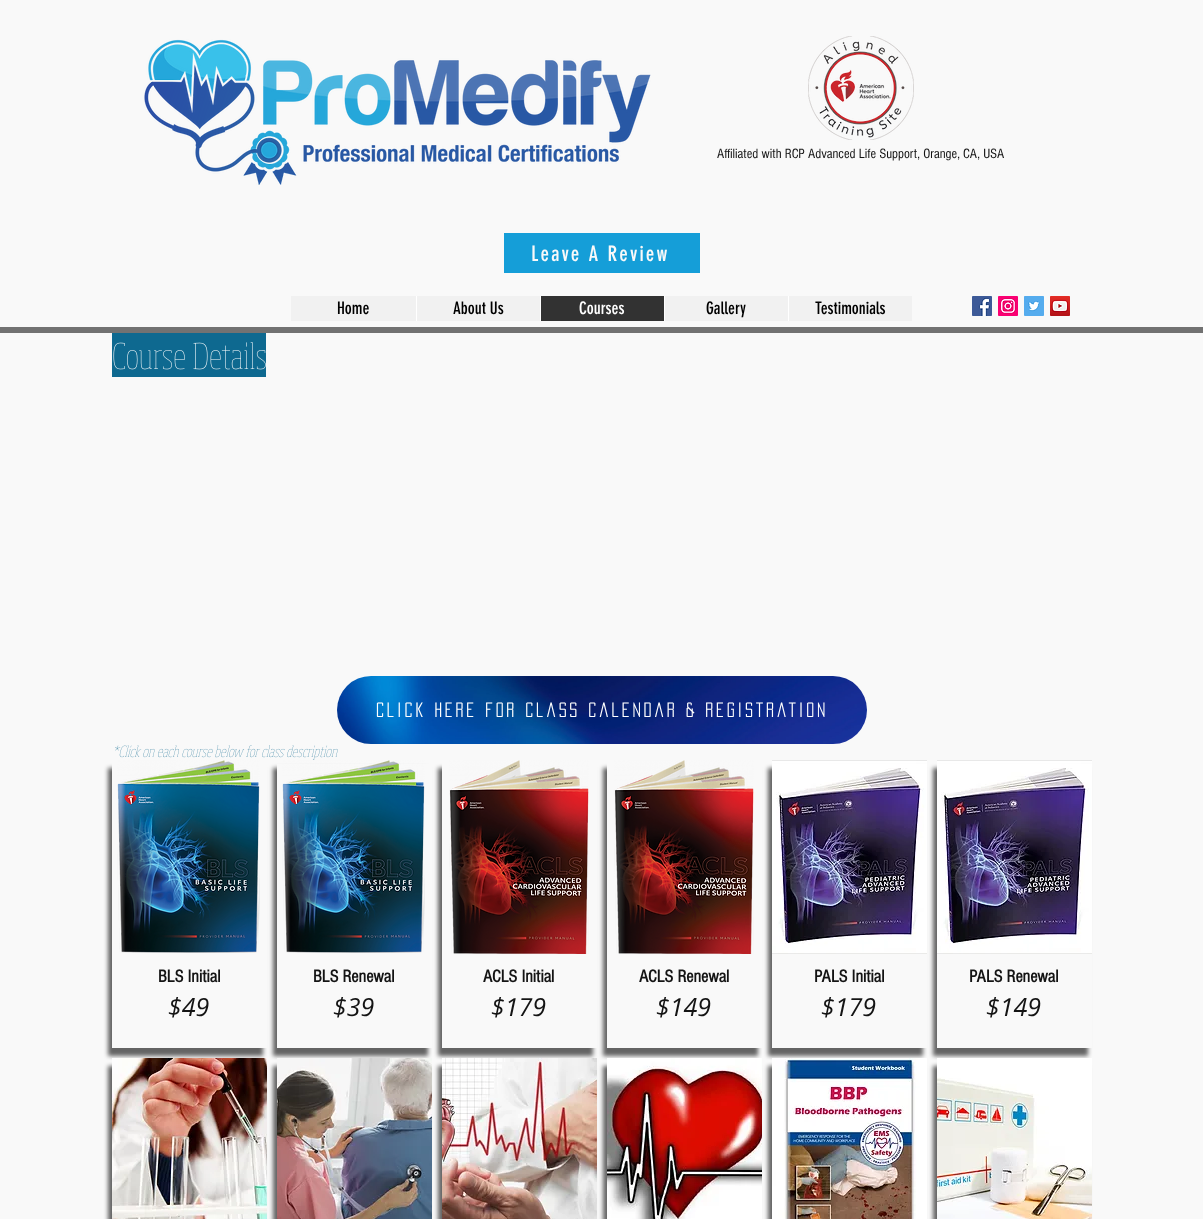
(async () => {
  const canvas = document.querySelector("canvas");
  canvas.width = 1203;
  canvas.height = 1219;
  const ctx = canvas.getContext("2d");
  ctx.miterLimit = 4;
  ctx.fontKerning = "normal";
  async function loadImage(src) {
    const img = new Image();
    img.src = src;
    await img.decode();
    return img;
  }
  let path;

  ctx.fillStyle = "#f9f9f9";
  ctx.fillRect(0, 0, 1203, 1219);
  ctx.drawImage(await loadImage("img/1.png"), 144, 39, 507, 146);
  ctx.drawImage(await loadImage("img/2.png"), 808, 36, 106, 104);
  for (const [x, y, w, h, color] of [
    [504, 233, 196, 40, "#159ed8"],
    [291, 296, 621, 25, "#f1f1f1"],
    [416, 296, 1, 25, "#ffffff"],
    [541, 296, 123, 25, "#323232"],
    [540, 296, 1, 25, "#ffffff"],
    [664, 296, 1, 25, "#ffffff"],
    [788, 296, 1, 25, "#ffffff"],
  ]) {
    ctx.fillStyle = color;
    ctx.fillRect(x, y, w, h);
  }
  ctx.drawImage(await loadImage("img/3.png"), 972, 296, 20, 20);
  ctx.drawImage(await loadImage("img/4.png"), 998, 296, 20, 20);
  ctx.drawImage(await loadImage("img/5.png"), 1024, 296, 20, 20);
  ctx.drawImage(await loadImage("img/6.png"), 1050, 296, 20, 20);
  ctx.fillStyle = "#727272";
  ctx.fillRect(0, 327, 1203, 6);
  ctx.fillStyle = "#0e6990";
  ctx.fillRect(112, 333, 154, 44);
  ctx.drawImage(await loadImage("img/7.png"), 113, 342, 153, 28);
  ctx.drawImage(await loadImage("img/8.png"), 337, 676, 530, 68);
  ctx.drawImage(await loadImage("img/9.png"), 115, 745, 223, 15);
  ctx.save();
  path = new Path2D("M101 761H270V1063H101ZM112 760H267V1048H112Z");
  ctx.clip(path, "evenodd");
  ctx.fillStyle = "rgba(0, 0, 0, 0.6)";
  ctx.filter = "blur(2px)";
  ctx.beginPath();
  ctx.rect(108, 768, 155, 288);
  ctx.fill();
  ctx.filter = "none";
  ctx.restore();
  ctx.drawImage(await loadImage("img/10.png"), 117, 760, 143, 193);
  ctx.fillStyle = "rgba(0, 0, 0, 0.6)";
  ctx.filter = "blur(2px)";
  ctx.beginPath();
  ctx.rect(273, 768, 155, 288);
  ctx.fill();
  ctx.filter = "none";
  ctx.fillStyle = "#f9f9f9";
  ctx.fillRect(277, 764, 155, 284);
  ctx.drawImage(await loadImage("img/10.png"), 282, 760, 143, 193);
  ctx.save();
  path = new Path2D("M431 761H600V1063H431ZM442 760H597V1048H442Z");
  ctx.clip(path, "evenodd");
  ctx.fillStyle = "rgba(0, 0, 0, 0.6)";
  ctx.filter = "blur(2px)";
  ctx.beginPath();
  ctx.rect(438, 768, 155, 288);
  ctx.fill();
  ctx.filter = "none";
  ctx.restore();
  ctx.drawImage(await loadImage("img/11.png"), 449, 760, 140, 194);
  ctx.save();
  path = new Path2D("M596 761H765V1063H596ZM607 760H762V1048H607Z");
  ctx.clip(path, "evenodd");
  ctx.fillStyle = "rgba(0, 0, 0, 0.6)";
  ctx.filter = "blur(2px)";
  ctx.beginPath();
  ctx.rect(603, 768, 155, 288);
  ctx.fill();
  ctx.filter = "none";
  ctx.restore();
  ctx.drawImage(await loadImage("img/11.png"), 614, 760, 140, 194);
  ctx.save();
  path = new Path2D("M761 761H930V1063H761ZM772 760H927V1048H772Z");
  ctx.clip(path, "evenodd");
  ctx.fillStyle = "rgba(0, 0, 0, 0.6)";
  ctx.filter = "blur(2px)";
  ctx.beginPath();
  ctx.rect(768, 768, 155, 288);
  ctx.fill();
  ctx.filter = "none";
  ctx.restore();
  ctx.drawImage(await loadImage("img/12.png"), 772, 760, 155, 194);
  ctx.save();
  path = new Path2D("M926 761H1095V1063H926ZM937 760H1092V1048H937Z");
  ctx.clip(path, "evenodd");
  ctx.fillStyle = "rgba(0, 0, 0, 0.6)";
  ctx.filter = "blur(2px)";
  ctx.beginPath();
  ctx.rect(933, 768, 155, 288);
  ctx.fill();
  ctx.filter = "none";
  ctx.restore();
  ctx.drawImage(await loadImage("img/12.png"), 937, 760, 155, 194);
  ctx.fillStyle = "rgba(0, 0, 0, 0.6)";
  ctx.filter = "blur(2px)";
  ctx.beginPath();
  ctx.rect(108, 1066, 155, 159);
  ctx.fill();
  ctx.filter = "none";
  ctx.drawImage(await loadImage("img/13.png"), 112, 1058, 155, 161);
  ctx.filter = "blur(2px)";
  ctx.beginPath();
  ctx.rect(273, 1066, 155, 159);
  ctx.fill();
  ctx.filter = "none";
  ctx.drawImage(await loadImage("img/14.png"), 277, 1058, 155, 161);
  ctx.filter = "blur(2px)";
  ctx.beginPath();
  ctx.rect(438, 1066, 155, 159);
  ctx.fill();
  ctx.filter = "none";
  ctx.drawImage(await loadImage("img/15.png"), 442, 1058, 155, 161);
  ctx.filter = "blur(2px)";
  ctx.beginPath();
  ctx.rect(603, 1066, 155, 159);
  ctx.fill();
  ctx.filter = "none";
  ctx.drawImage(await loadImage("img/16.png"), 607, 1058, 155, 161);
  ctx.filter = "blur(2px)";
  ctx.beginPath();
  ctx.rect(768, 1066, 155, 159);
  ctx.fill();
  ctx.filter = "none";
  ctx.drawImage(await loadImage("img/17.png"), 772, 1058, 155, 161);
  ctx.filter = "blur(2px)";
  ctx.beginPath();
  ctx.rect(933, 1066, 155, 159);
  ctx.fill();
  ctx.filter = "none";
  ctx.drawImage(await loadImage("img/18.png"), 937, 1058, 155, 161);
  ctx.font = "14px 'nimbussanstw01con'";
  ctx.fillStyle = "#141414";
  ctx.fillText("Affiliated with RCP Advanced Life Support, Orange, CA, USA", 717, 158);
  ctx.letterSpacing = "2.1px";
  ctx.font = "21px 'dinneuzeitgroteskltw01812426'";
  ctx.fillStyle = "#f9f9f9";
  ctx.fillText("Leave A Review", 531, 261);
  ctx.letterSpacing = "0px";
  ctx.font = "17px 'dinneuzeitgroteskltw01812426'";
  ctx.fillStyle = "#000000";
  ctx.fillText("Home", 337, 314);
  ctx.fillText("About Us", 453, 314);
  ctx.fillStyle = "#ffffff";
  ctx.fillText("Courses", 579, 314);
  ctx.fillStyle = "#000000";
  ctx.fillText("Gallery", 706, 314);
  ctx.fillText("Testimonials", 815, 314);
  ctx.letterSpacing = "2.7px";
  ctx.font = "18px 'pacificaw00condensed'";
  ctx.fillStyle = "#ffffff";
  ctx.fillText("Click Here for Class Calendar & Registration", 376, 717);
  ctx.letterSpacing = "0px";
  ctx.font = "bold 18px 'nimbussanstw01con'";
  ctx.fillStyle = "#141414";
  ctx.fillText("BLS Initial", 158, 982);
  ctx.font = "italic 25px Open Sans";
  ctx.fillText("$49", 168, 1016);
  ctx.font = "bold 18px 'nimbussanstw01con'";
  ctx.fillText("BLS Renewal", 313, 982);
  ctx.font = "italic 25px Open Sans";
  ctx.fillText("$39", 333, 1016);
  ctx.font = "bold 18px 'nimbussanstw01con'";
  ctx.fillText("ACLS Initial", 483, 982);
  ctx.font = "italic 25px Open Sans";
  ctx.fillText("$179", 491, 1016);
  ctx.font = "bold 18px 'nimbussanstw01con'";
  ctx.fillText("ACLS Renewal", 639, 982);
  ctx.font = "italic 25px Open Sans";
  ctx.fillText("$149", 656, 1016);
  ctx.font = "bold 18px 'nimbussanstw01con'";
  ctx.fillText("PALS Initial", 814, 982);
  ctx.font = "italic 25px Open Sans";
  ctx.fillText("$179", 821, 1016);
  ctx.font = "bold 18px 'nimbussanstw01con'";
  ctx.fillText("PALS Renewal", 969, 982);
  ctx.font = "italic 25px Open Sans";
  ctx.fillText("$149", 986, 1016);
})();
